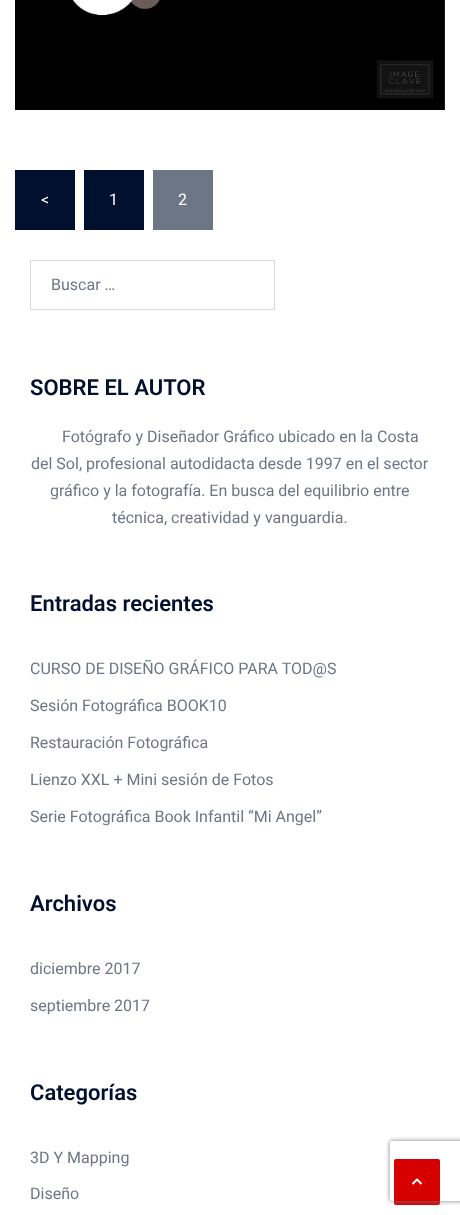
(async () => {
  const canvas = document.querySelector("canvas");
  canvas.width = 460;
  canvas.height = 1215;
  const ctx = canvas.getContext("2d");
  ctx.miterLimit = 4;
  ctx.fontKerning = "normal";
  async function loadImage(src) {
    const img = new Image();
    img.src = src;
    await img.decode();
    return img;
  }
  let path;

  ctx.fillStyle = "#ffffff";
  ctx.fillRect(0, 0, 460, 1215);
  ctx.drawImage(await loadImage("img/1.png"), 15, 0, 430, 110);
  for (const [x, y, w, h, color] of [
    [15, 170, 60, 60, "#00102e"],
    [84, 170, 60, 60, "#00102e"],
    [153, 170, 60, 60, "#6d7685"],
  ]) {
    ctx.fillStyle = color;
    ctx.fillRect(x, y, w, h);
  }
  ctx.strokeStyle = "#dbdbdb";
  ctx.strokeRect(30.5, 260.5, 244, 49);
  ctx.fillStyle = "#d60000";
  ctx.beginPath();
  ctx.roundRect(394, 1159, 46, 46, 2);
  ctx.fill();
  path = new Path2D("M412.5 1184L417 1179.5L421.5 1184");
  ctx.strokeStyle = "#ffffff";
  ctx.lineWidth = 2;
  ctx.lineJoin = "round";
  ctx.stroke(path);
  ctx.save();
  path = new Path2D("M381 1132H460V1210H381ZM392 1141H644C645 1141 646 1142 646 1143V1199C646 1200 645 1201 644 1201H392C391 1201 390 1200 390 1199V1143C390 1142 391 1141 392 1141Z");
  ctx.clip(path, "evenodd");
  ctx.fillStyle = "#808080";
  ctx.filter = "blur(2.5px)";
  ctx.beginPath();
  ctx.roundRect(390, 1141, 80, 60, 2);
  ctx.fill();
  ctx.filter = "none";
  ctx.restore();
  ctx.font = "16px Roboto";
  ctx.fillStyle = "#ffffff";
  for (const [text, x, y] of [
    ["<", 41, 205],
    ["1", 109, 205],
    ["2", 178, 205],
  ]) {
    ctx.fillText(text, x, y);
  }
  ctx.fillStyle = "#6d7685";
  ctx.fillText("Buscar …", 51, 290);
  ctx.font = "600 22px Roboto";
  ctx.fillStyle = "#00102e";
  ctx.fillText("SOBRE EL AUTOR", 30, 395);
  ctx.font = "16px Roboto";
  ctx.fillStyle = "#6d7685";
  for (const [text, x, y] of [
    ["Fotógrafo y Diseñador Gráfico ubicado en la Costa", 62, 442],
    ["del Sol, profesional autodidacta desde 1997 en el sector", 31, 469],
    ["gráfico y la fotografía. En busca del equilibrio entre", 50, 496],
    ["técnica, creatividad y vanguardia.", 112, 523],
  ]) {
    ctx.fillText(text, x, y);
  }
  ctx.font = "600 22px Roboto";
  ctx.fillStyle = "#00102e";
  ctx.fillText("Entradas recientes", 30, 611);
  ctx.font = "16px Roboto";
  ctx.fillStyle = "#6d7685";
  for (const [text, x, y] of [
    ["CURSO DE DISEÑO GRÁFICO PARA TOD@S", 30, 674],
    ["Sesión Fotográfica BOOK10", 30, 711],
    ["Restauración Fotográfica", 30, 748],
    ["Lienzo XXL + Mini sesión de Fotos", 30, 785],
    ["Serie Fotográfica Book Infantil “Mi Angel”", 30, 822],
  ]) {
    ctx.fillText(text, x, y);
  }
  ctx.font = "600 22px Roboto";
  ctx.fillStyle = "#00102e";
  ctx.fillText("Archivos", 30, 911);
  ctx.font = "16px Roboto";
  ctx.fillStyle = "#6d7685";
  ctx.fillText("diciembre 2017", 30, 974);
  ctx.fillText("septiembre 2017", 30, 1011);
  ctx.font = "600 22px Roboto";
  ctx.fillStyle = "#00102e";
  ctx.fillText("Categorías", 30, 1100);
  ctx.font = "16px Roboto";
  ctx.fillStyle = "#6d7685";
  ctx.fillText("3D Y Mapping", 30, 1163);
  ctx.fillText("Diseño", 30, 1199);
})();
